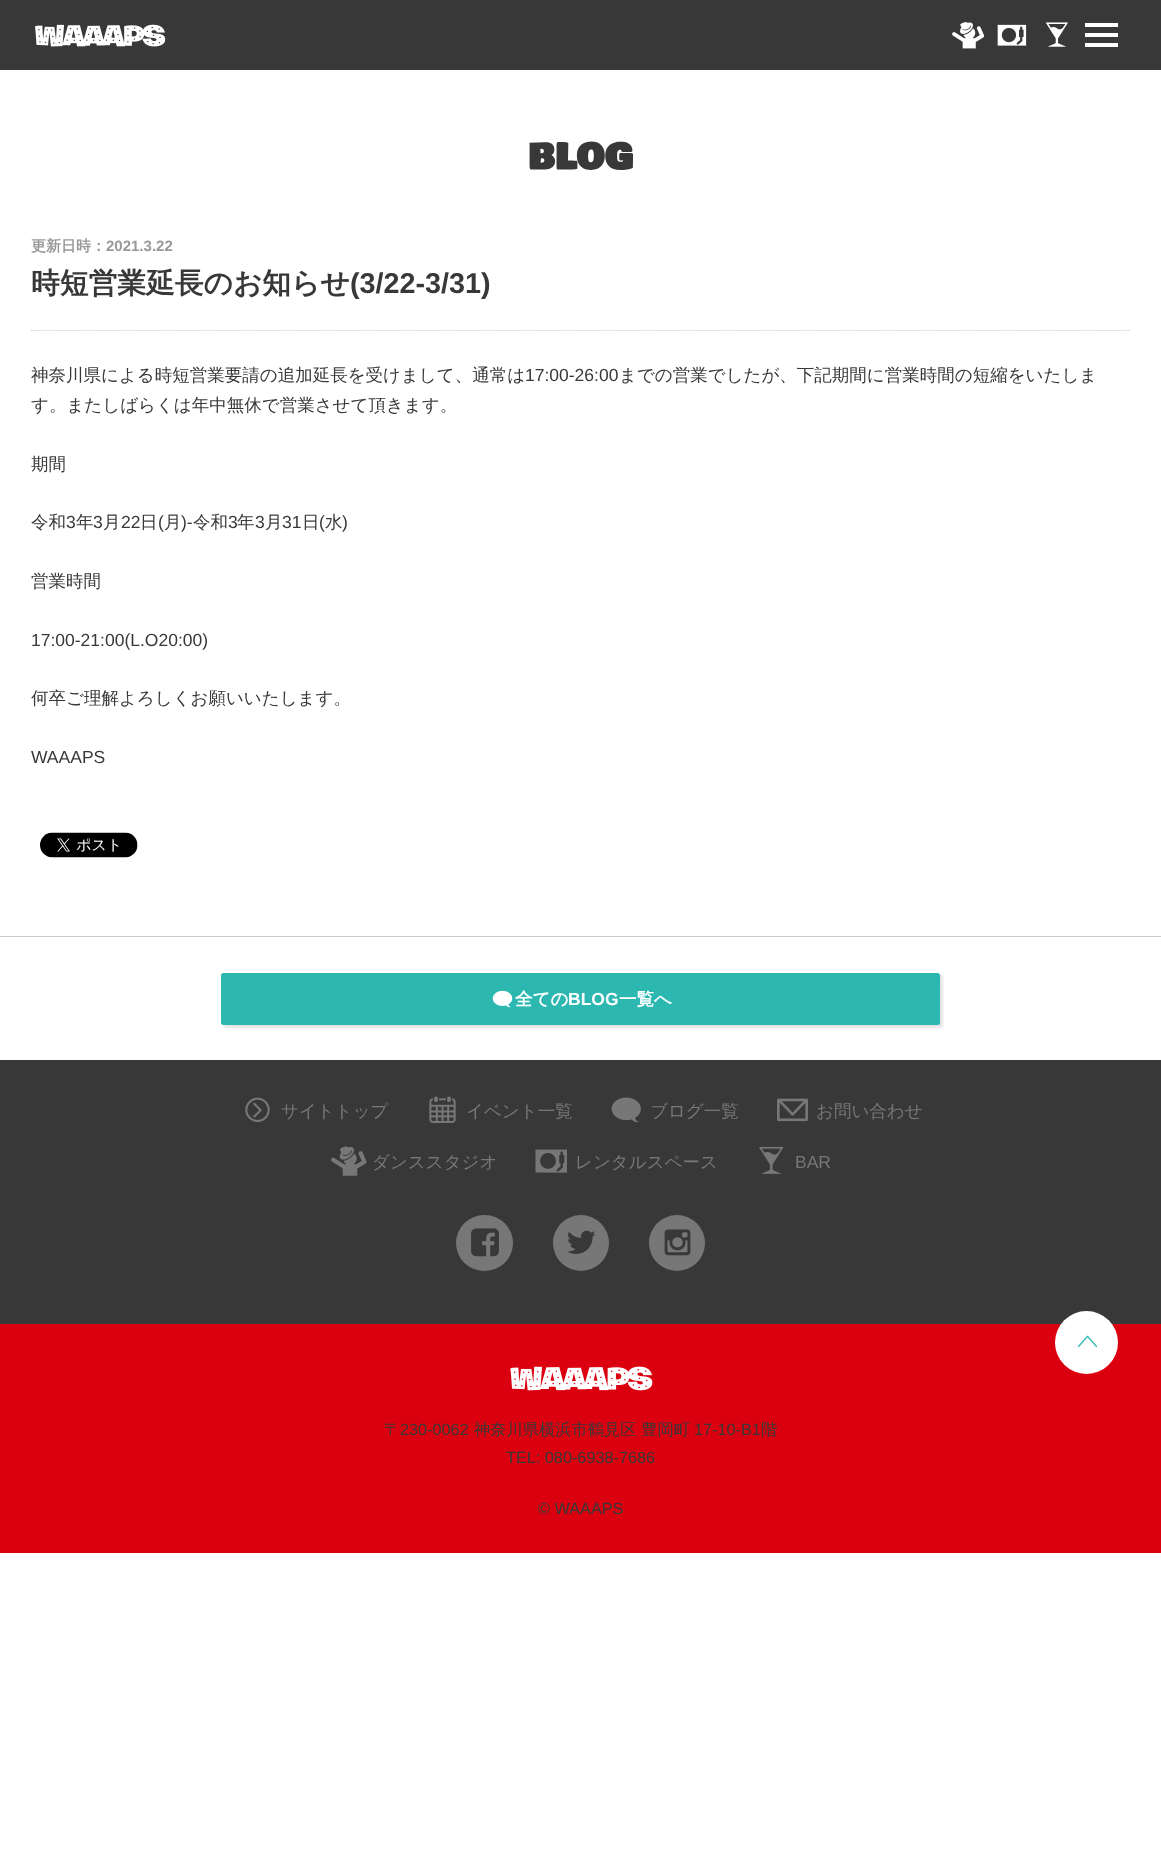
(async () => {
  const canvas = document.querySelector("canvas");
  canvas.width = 1161;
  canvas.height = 1864;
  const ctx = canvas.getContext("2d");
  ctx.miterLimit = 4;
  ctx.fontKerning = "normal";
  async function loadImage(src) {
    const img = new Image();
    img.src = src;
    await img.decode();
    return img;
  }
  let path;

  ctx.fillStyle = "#ffffff";
  ctx.fillRect(0, 0, 1161, 1864);
  ctx.fillStyle = "#383838";
  ctx.fillRect(0, 0, 1161, 70);
  ctx.drawImage(await loadImage("img/1.png"), 35, 24, 131, 23);
  ctx.drawImage(await loadImage("img/2.png"), 952, 22, 33, 27);
  ctx.drawImage(await loadImage("img/3.png"), 997, 24, 30, 22);
  ctx.drawImage(await loadImage("img/4.png"), 1045, 22, 23, 25);
  for (const [x, y, w, h, color] of [
    [1085, 23, 33, 4, "#ffffff"],
    [1085, 33, 33, 4, "#ffffff"],
    [1085, 43, 33, 4, "#ffffff"],
  ]) {
    ctx.fillStyle = color;
    ctx.fillRect(x, y, w, h);
  }
  path = new Path2D("M31 330.5H1130");
  ctx.strokeStyle = "#cccccc";
  ctx.lineWidth = 1.2;
  ctx.setLineDash([1.25, 1.25]);
  ctx.stroke(path);
  ctx.drawImage(await loadImage("img/5.png"), 40, 832, 98, 26);
  ctx.fillStyle = "#cacaca";
  ctx.fillRect(0, 936, 1161, 1);
  ctx.fillStyle = "rgba(0, 0, 0, 0.1)";
  ctx.filter = "blur(1px)";
  ctx.beginPath();
  ctx.roundRect(224, 975, 719, 53, 2.5);
  ctx.fill();
  ctx.filter = "none";
  ctx.fillStyle = "#2cb8b1";
  ctx.beginPath();
  ctx.roundRect(221, 973, 719, 52, 2.5);
  ctx.fill();
  ctx.drawImage(await loadImage("img/6.png"), 492, 990, 21, 18);
  ctx.fillStyle = "#383838";
  ctx.fillRect(0, 1060, 1161, 264);
  ctx.drawImage(await loadImage("img/7.png"), 245, 1097, 25, 25);
  ctx.drawImage(await loadImage("img/8.png"), 429, 1096, 27, 27);
  ctx.drawImage(await loadImage("img/9.png"), 611, 1097, 30, 26);
  ctx.drawImage(await loadImage("img/10.png"), 777, 1098, 31, 24);
  ctx.drawImage(await loadImage("img/11.png"), 331, 1146, 36, 30);
  ctx.drawImage(await loadImage("img/12.png"), 535, 1149, 32, 24);
  ctx.drawImage(await loadImage("img/13.png"), 759, 1146, 25, 28);
  ctx.fillStyle = "#777777";
  ctx.beginPath();
  ctx.roundRect(456, 1215, 57, 56, 28);
  ctx.fill();
  ctx.drawImage(await loadImage("img/14.png"), 471, 1228, 28, 29);
  ctx.beginPath();
  ctx.arc(581, 1243, 28, 0, Math.PI * 2);
  ctx.fill();
  ctx.drawImage(await loadImage("img/15.png"), 567, 1230, 29, 24);
  ctx.beginPath();
  ctx.arc(677, 1243, 28, 0, Math.PI * 2);
  ctx.fill();
  ctx.drawImage(await loadImage("img/16.png"), 664, 1229, 27, 27);
  ctx.fillStyle = "#db000f";
  ctx.fillRect(0, 1324, 1161, 229);
  ctx.fillStyle = "#ffffff";
  ctx.beginPath();
  ctx.arc(1086.5, 1342.5, 31.5, 0, Math.PI * 2);
  ctx.fill();
  ctx.drawImage(await loadImage("img/17.png"), 1077, 1335, 21, 13);
  ctx.drawImage(await loadImage("img/18.png"), 510, 1366, 143, 25);
  ctx.font = "bold 35px Bowlby One SC";
  ctx.fillStyle = "#383838";
  ctx.fillText("BLOG", 528, 169);
  ctx.font = "bold 15px WenQuanYi Zen Hei";
  ctx.fillStyle = "#999999";
  ctx.fillText("更新日時：", 31, 251);
  ctx.font = "bold 15px Liberation Sans";
  ctx.fillText("2021.3.22", 106, 251);
  ctx.font = "bold 28.75px WenQuanYi Zen Hei";
  ctx.fillStyle = "#383838";
  ctx.fillText("時短営業延長のお知らせ", 31, 293);
  ctx.font = "bold 28.75px Liberation Sans";
  ctx.fillText("(3/22-3/31)", 350, 293);
  ctx.font = "500 17.5px WenQuanYi Zen Hei";
  ctx.fillText("神奈川県による時短営業要請の追加延長を受けまして、通常は", 31, 381);
  ctx.font = "17.5px Liberation Sans";
  ctx.fillText("17:00-26:00", 525, 381);
  ctx.font = "500 17.5px WenQuanYi Zen Hei";
  for (const [text, x, y] of [
    ["までの営業でしたが、下記期間に営業時間の短縮をいたしま", 619, 381],
    ["す。またしばらくは年中無休で営業させて頂きます。", 31, 411],
    ["期間", 31, 470],
    ["令和", 31, 528],
  ]) {
    ctx.fillText(text, x, y);
  }
  ctx.font = "17.5px Liberation Sans";
  ctx.fillText("3", 66, 528);
  ctx.font = "500 17.5px WenQuanYi Zen Hei";
  ctx.fillText("年", 76, 528);
  ctx.font = "17.5px Liberation Sans";
  ctx.fillText("3", 93, 528);
  ctx.font = "500 17.5px WenQuanYi Zen Hei";
  ctx.fillText("月", 103, 528);
  ctx.font = "17.5px Liberation Sans";
  ctx.fillText("22", 121, 528);
  ctx.font = "500 17.5px WenQuanYi Zen Hei";
  ctx.fillText("日", 140, 528);
  ctx.font = "17.5px Liberation Sans";
  ctx.fillText("(", 158, 528);
  ctx.font = "500 17.5px WenQuanYi Zen Hei";
  ctx.fillText("月", 164, 528);
  ctx.font = "17.5px Liberation Sans";
  ctx.fillText(")-", 181, 528);
  ctx.font = "500 17.5px WenQuanYi Zen Hei";
  ctx.fillText("令和", 193, 528);
  ctx.font = "17.5px Liberation Sans";
  ctx.fillText("3", 228, 528);
  ctx.font = "500 17.5px WenQuanYi Zen Hei";
  ctx.fillText("年", 237, 528);
  ctx.font = "17.5px Liberation Sans";
  ctx.fillText("3", 255, 528);
  ctx.font = "500 17.5px WenQuanYi Zen Hei";
  ctx.fillText("月", 265, 528);
  ctx.font = "17.5px Liberation Sans";
  ctx.fillText("31", 282, 528);
  ctx.font = "500 17.5px WenQuanYi Zen Hei";
  ctx.fillText("日", 302, 528);
  ctx.font = "17.5px Liberation Sans";
  ctx.fillText("(", 319, 528);
  ctx.font = "500 17.5px WenQuanYi Zen Hei";
  ctx.fillText("水", 325, 528);
  ctx.font = "17.5px Liberation Sans";
  ctx.fillText(")", 342, 528);
  ctx.font = "500 17.5px WenQuanYi Zen Hei";
  ctx.fillText("営業時間", 31, 587);
  ctx.font = "17.5px Liberation Sans";
  ctx.fillText("17:00-21:00(L.O20:00)", 31, 646);
  ctx.font = "500 17.5px WenQuanYi Zen Hei";
  ctx.fillText("何卒ご理解よろしくお願いいたします。", 31, 704);
  ctx.font = "17.5px Liberation Sans";
  ctx.fillText("WAAAPS", 31, 763);
  ctx.font = "bold 17.5px WenQuanYi Zen Hei";
  ctx.fillStyle = "#ffffff";
  ctx.fillText("全ての", 515, 1005);
  ctx.font = "bold 17.5px Liberation Sans";
  ctx.fillText("BLOG", 568, 1005);
  ctx.font = "bold 17.5px WenQuanYi Zen Hei";
  ctx.fillText("一覧へ", 619, 1005);
  ctx.font = "500 17.5px WenQuanYi Zen Hei";
  ctx.fillStyle = "#777777";
  for (const [text, x, y] of [
    ["サイトトップ", 281, 1117],
    ["イベント一覧", 466, 1117],
    ["ブログ一覧", 650, 1117],
    ["お問い合わせ", 816, 1117],
    ["ダンススタジオ", 372, 1168],
    ["レンタルスペース", 575, 1168],
  ]) {
    ctx.fillText(text, x, y);
  }
  ctx.font = "17.5px Liberation Sans";
  ctx.fillText("BAR", 795, 1168);
  ctx.font = "500 16.25px WenQuanYi Zen Hei";
  ctx.fillStyle = "#383838";
  ctx.fillText("〒", 384, 1435);
  ctx.font = "16.25px Liberation Sans";
  ctx.fillText("230-0062", 400, 1435);
  ctx.font = "500 16.25px WenQuanYi Zen Hei";
  ctx.fillText("神奈川県横浜市鶴見区 豊岡町", 474, 1435);
  ctx.font = "16.25px Liberation Sans";
  ctx.fillText("17-10-B1", 694, 1435);
  ctx.font = "500 16.25px WenQuanYi Zen Hei";
  ctx.fillText("階", 761, 1435);
  ctx.font = "16.25px Liberation Sans";
  ctx.fillText("TEL: 080-6938-7686", 506, 1463);
  ctx.fillText("© WAAAPS", 538, 1514);
})();
